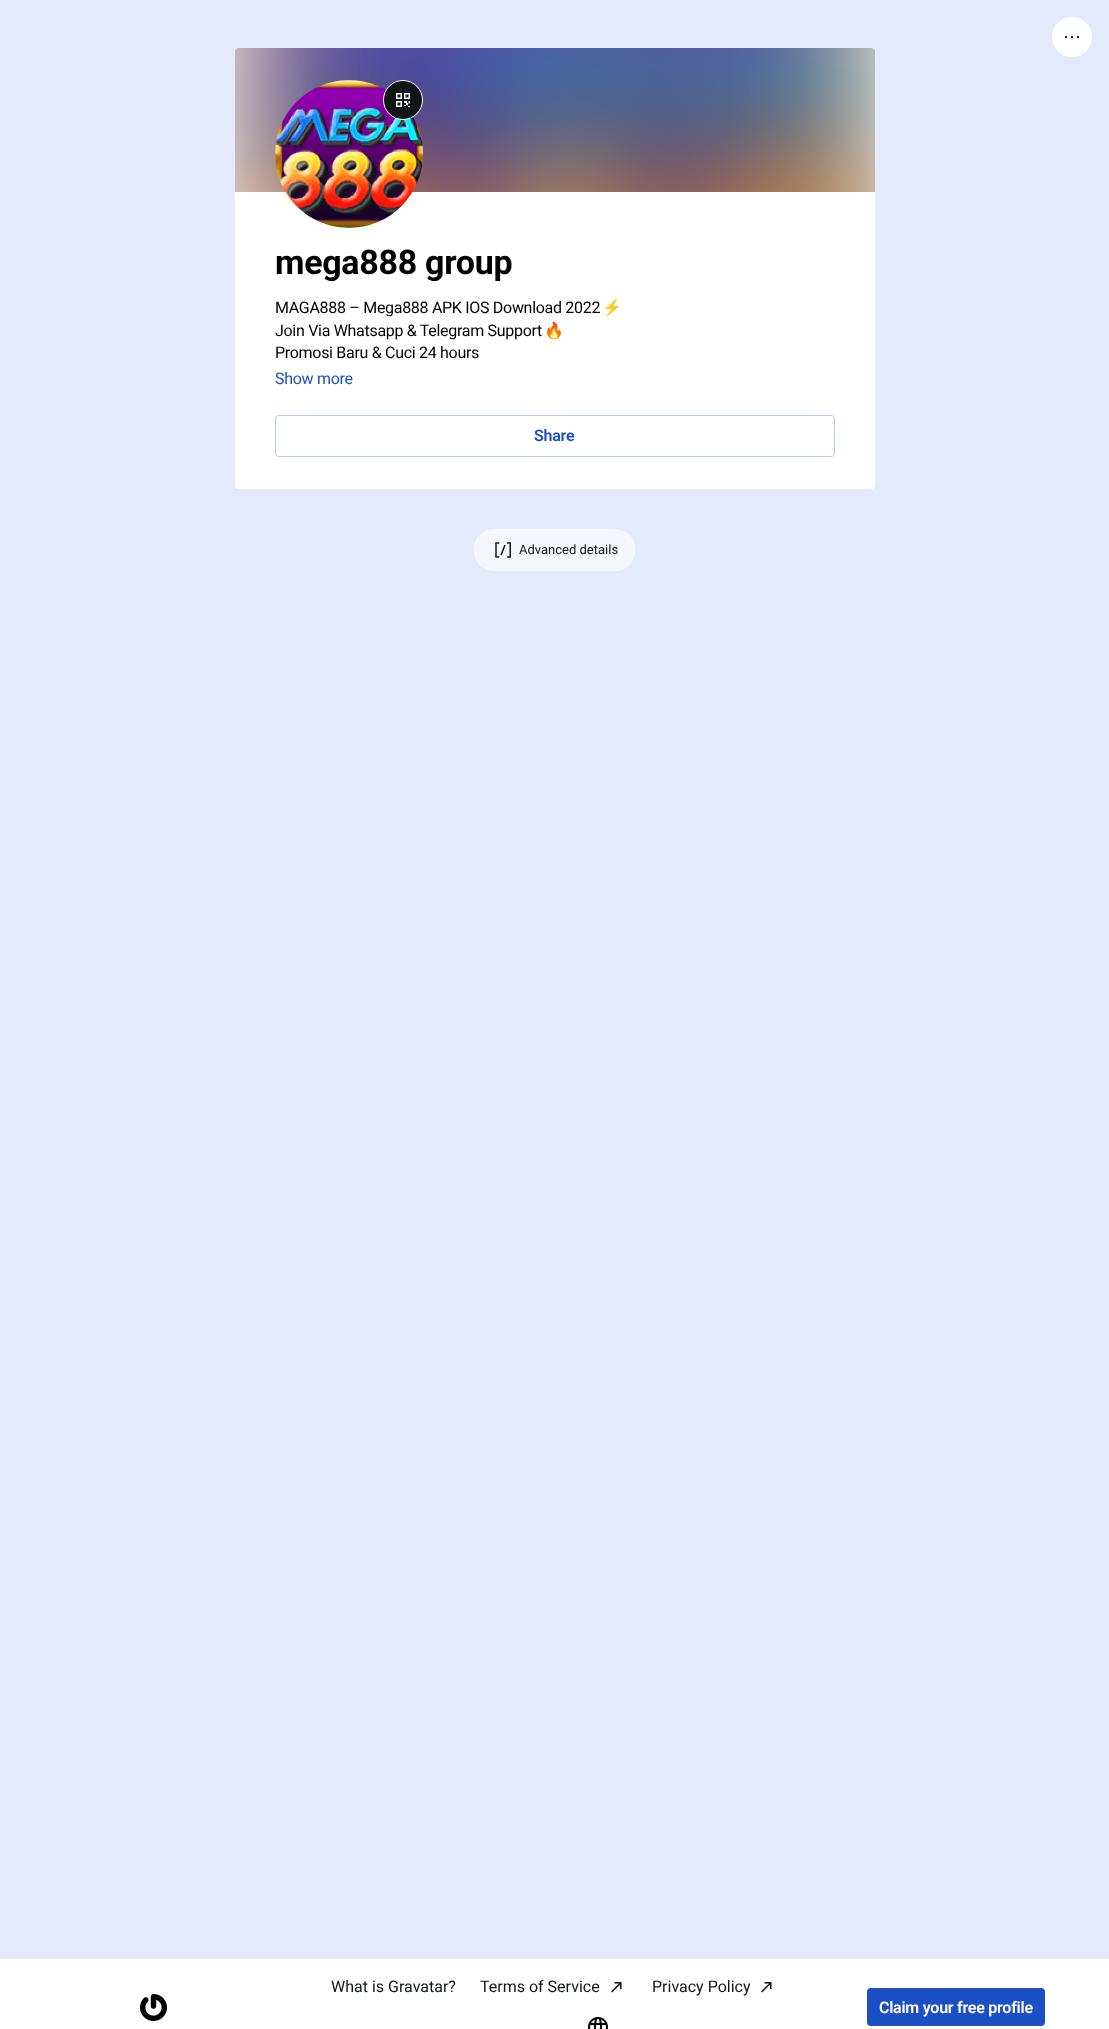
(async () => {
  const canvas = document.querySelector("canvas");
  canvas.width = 1109;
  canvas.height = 2029;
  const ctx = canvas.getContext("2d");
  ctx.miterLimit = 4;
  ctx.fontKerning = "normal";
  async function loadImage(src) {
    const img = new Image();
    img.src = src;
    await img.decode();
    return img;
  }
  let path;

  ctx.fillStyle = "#ffffff";
  ctx.fillRect(0, 0, 1109, 2029);
  ctx.fillStyle = "#e3eafc";
  ctx.fillRect(0, 0, 1109, 1959);
  ctx.fillStyle = "#ffffff";
  ctx.beginPath();
  ctx.arc(1072, 37, 20, 0, Math.PI * 2);
  ctx.fill();
  path = new Path2D("M1073 37H1071M1079 37H1077M1067 37H1065");
  ctx.strokeStyle = "#1e1e1e";
  ctx.lineWidth = 2;
  ctx.stroke(path);
  ctx.beginPath();
  ctx.roundRect(235, 48, 640, 441, 4);
  ctx.fill();
  ctx.drawImage(await loadImage("img/1.png"), 235, 48, 640, 144);
  ctx.drawImage(await loadImage("img/2.png"), 275, 80, 148, 148);
  ctx.fillStyle = "#101517";
  ctx.beginPath();
  ctx.arc(403, 100, 19.5, 0, Math.PI * 2);
  ctx.fill();
  ctx.strokeStyle = "#ffffff";
  ctx.lineWidth = 1;
  ctx.stroke();
  ctx.drawImage(await loadImage("img/3.png"), 396, 93, 14, 14);
  ctx.beginPath();
  ctx.roundRect(275.5, 415.5, 559, 41, 3.5);
  ctx.strokeStyle = "#bbcaed";
  ctx.stroke();
  ctx.fillStyle = "#f4f7fe";
  ctx.beginPath();
  ctx.roundRect(474, 529, 161, 42, 20);
  ctx.fill();
  ctx.beginPath();
  ctx.roundRect(474.5, 529.5, 160, 41, 19.5);
  ctx.strokeStyle = "rgba(255, 255, 255, 0.4)";
  ctx.stroke();
  ctx.drawImage(await loadImage("img/4.png"), 495, 542, 16, 16);
  ctx.drawImage(await loadImage("img/5.png"), 611, 1982, 11, 11);
  ctx.drawImage(await loadImage("img/5.png"), 761, 1982, 11, 11);
  ctx.drawImage(await loadImage("img/6.png"), 588, 2017, 20, 12);
  ctx.drawImage(await loadImage("img/7.png"), 140, 1994, 27, 27);
  ctx.fillStyle = "#1d4fc4";
  ctx.beginPath();
  ctx.roundRect(867, 1988, 178, 38, 4);
  ctx.fill();
  ctx.letterSpacing = "-0.3px";
  ctx.font = "bold 34px Roboto";
  ctx.fillStyle = "#000000";
  ctx.fillText("mega888 group", 275, 274);
  ctx.font = "16px Roboto";
  ctx.fillText("MAGA888 – Mega888 APK IOS Download 2022", 275, 313);
  ctx.font = "16px Noto Color Emoji";
  ctx.fillText("⚡", 602, 313);
  ctx.font = "16px Roboto";
  ctx.fillText("Join Via Whatsapp & Telegram Support", 275, 336);
  ctx.font = "16px Noto Color Emoji";
  ctx.fillText("🔥", 544, 336);
  ctx.font = "16px Roboto";
  ctx.fillText("Promosi Baru & Cuci 24 hours", 275, 358);
  ctx.fillStyle = "#1d4fc4";
  ctx.fillText("Show more", 275, 384);
  ctx.letterSpacing = "-0.25px";
  ctx.font = "600 16px Roboto";
  ctx.fillText("Share", 534, 441);
  ctx.letterSpacing = "0px";
  ctx.font = "13px Roboto";
  ctx.fillStyle = "#101517";
  ctx.fillText("Advanced details", 519, 554);
  ctx.font = "16px Roboto";
  for (const [text, x, y] of [
    ["What is Gravatar?", 331, 1992],
    ["Terms of Service", 480, 1992],
    ["Privacy Policy", 652, 1992],
  ]) {
    ctx.fillText(text, x, y);
  }
  ctx.letterSpacing = "-0.25px";
  ctx.font = "600 16px Roboto";
  ctx.fillStyle = "#ffffff";
  ctx.fillText("Claim your free profile", 879, 2013);
})();
